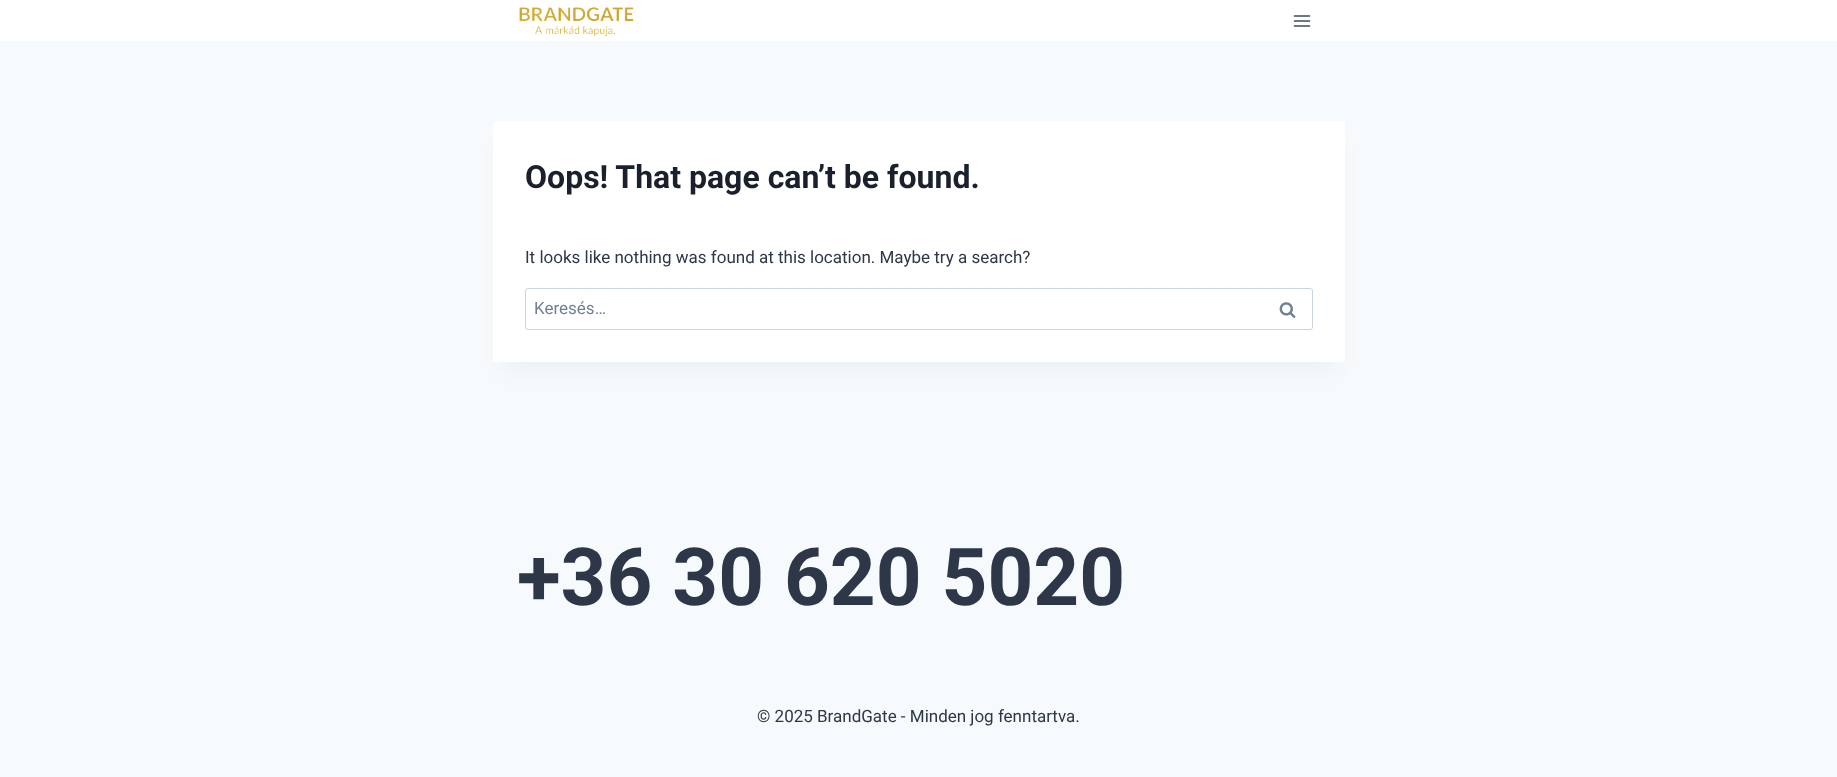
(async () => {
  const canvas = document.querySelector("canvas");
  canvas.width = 1837;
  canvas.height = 777;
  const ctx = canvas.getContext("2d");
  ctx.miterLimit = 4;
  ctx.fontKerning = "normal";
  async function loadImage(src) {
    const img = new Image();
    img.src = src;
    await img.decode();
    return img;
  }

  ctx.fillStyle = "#f7fafc";
  ctx.fillRect(0, 0, 1837, 777);
  ctx.fillStyle = "#ffffff";
  ctx.fillRect(0, 0, 1837, 41);
  ctx.drawImage(await loadImage("img/1.png"), 519, 7, 115, 30);
  ctx.drawImage(await loadImage("img/2.png"), 1293, 15, 18, 12);
  ctx.fillStyle = "rgba(0, 0, 0, 0.05)";
  ctx.filter = "blur(12.5px)";
  ctx.beginPath();
  ctx.rect(503, 146, 832, 221);
  ctx.fill();
  ctx.filter = "none";
  ctx.fillStyle = "#ffffff";
  ctx.beginPath();
  ctx.roundRect(493, 121, 852, 241, 4);
  ctx.fill();
  ctx.beginPath();
  ctx.roundRect(525.5, 288.5, 787, 41, 2.5);
  ctx.strokeStyle = "#cbd5e0";
  ctx.stroke();
  ctx.drawImage(await loadImage("img/3.png"), 1279, 302, 17, 16);
  ctx.font = "bold 32px Roboto";
  ctx.fillStyle = "#1a202c";
  ctx.fillText("Oops! That page can’t be found.", 525, 188);
  ctx.font = "17px Roboto";
  ctx.fillStyle = "#2d3748";
  ctx.fillText("It looks like nothing was found at this location. Maybe try a search?", 525, 263);
  ctx.fillStyle = "#718096";
  ctx.fillText("Keresés…", 534, 314);
  ctx.font = "bold 80px Roboto";
  ctx.fillStyle = "#2d3748";
  ctx.fillText("+36 30 620 5020", 517, 605);
  ctx.font = "17px Roboto";
  ctx.fillText("© 2025 BrandGate - Minden jog fenntartva.", 757, 722);
})();
